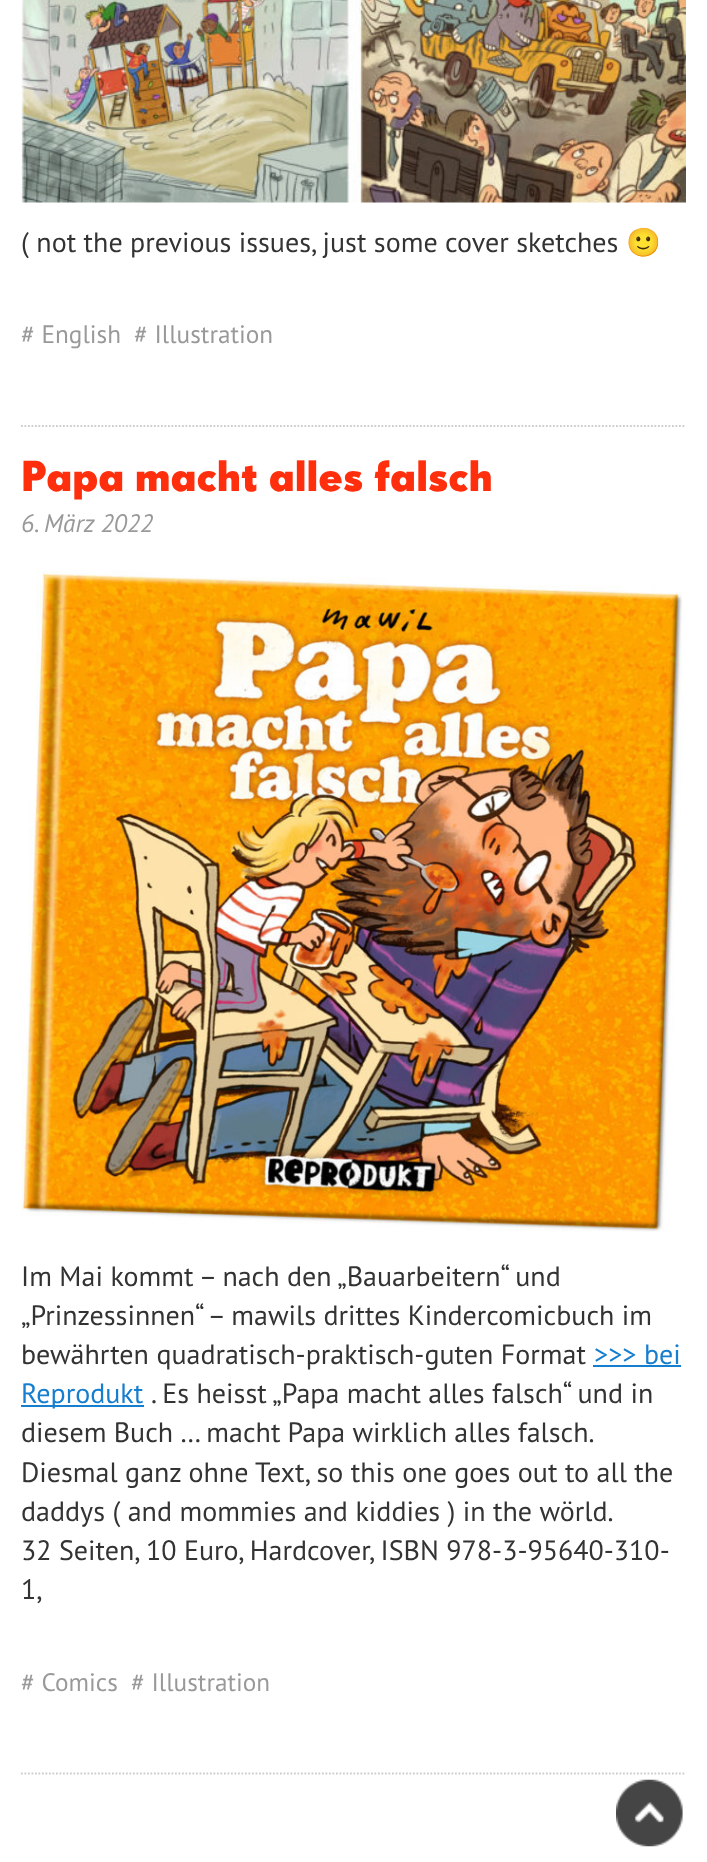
(async () => {
  const canvas = document.querySelector("canvas");
  canvas.width = 707;
  canvas.height = 1862;
  const ctx = canvas.getContext("2d");
  ctx.miterLimit = 4;
  ctx.fontKerning = "normal";
  async function loadImage(src) {
    const img = new Image();
    img.src = src;
    await img.decode();
    return img;
  }
  let path;

  ctx.fillStyle = "#ffffff";
  ctx.fillRect(0, 0, 707, 1862);
  path = new Path2D("M21 426H686");
  ctx.strokeStyle = "#cccccc";
  ctx.lineWidth = 1.8;
  ctx.setLineDash([1.75, 1.75]);
  ctx.stroke(path);
  ctx.drawImage(await loadImage("img/1.png"), 21, 0, 665, 203);
  path = new Path2D("M21 1773.5H686");
  ctx.stroke(path);
  ctx.drawImage(await loadImage("img/2.png"), 21, 570, 662, 662);
  ctx.fillStyle = "#167ece";
  ctx.fillRect(593, 1365, 88, 2);
  ctx.fillRect(21, 1405, 123, 2);
  ctx.drawImage(await loadImage("img/3.png"), 616, 1779, 67, 68);
  ctx.font = "28px PT Sans";
  ctx.fillStyle = "#333333";
  ctx.fillText("( not the previous issues, just some cover sketches", 21, 252);
  ctx.font = "28px Noto Color Emoji";
  ctx.fillText("🙂", 626, 252);
  ctx.font = "25.25px PT Sans";
  ctx.fillStyle = "#999999";
  ctx.fillText("# English", 21, 343);
  ctx.fillText("# Illustration", 134, 343);
  ctx.font = "42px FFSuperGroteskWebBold";
  ctx.fillStyle = "#ff2e0d";
  ctx.fillText("Papa macht alles falsch", 21, 491);
  ctx.font = "italic 25.25px PT Sans";
  ctx.fillStyle = "#999999";
  ctx.fillText("6. März 2022", 21, 532);
  ctx.font = "28px PT Sans";
  ctx.fillStyle = "#333333";
  for (const [text, x, y] of [
    ["Im Mai kommt – nach den „Bauarbeitern“ und", 21, 1286],
    ["„Prinzessinnen“ – mawils drittes Kindercomicbuch im", 21, 1325],
    ["bewährten quadratisch-praktisch-guten Format", 21, 1364],
  ]) {
    ctx.fillText(text, x, y);
  }
  ctx.fillStyle = "#167ece";
  ctx.fillText(">>> bei", 594, 1364);
  ctx.fillText("Reprodukt", 21, 1403);
  ctx.fillStyle = "#333333";
  ctx.fillText(". Es heisst „Papa macht alles falsch“ und in", 151, 1403);
  ctx.wordSpacing = "-0.25px";
  ctx.fillText("diesem Buch … macht Papa wirklich alles falsch.", 21, 1442);
  ctx.wordSpacing = "0px";
  for (const [text, x, y] of [
    ["Diesmal ganz ohne Text, so this one goes out to all the", 21, 1482],
    ["daddys ( and mommies and kiddies ) in the wörld.", 21, 1521],
    ["32 Seiten, 10 Euro, Hardcover, ISBN 978-3-95640-310-", 21, 1560],
    ["1,", 21, 1599],
  ]) {
    ctx.fillText(text, x, y);
  }
  ctx.font = "25.25px PT Sans";
  ctx.fillStyle = "#999999";
  ctx.fillText("# Comics", 21, 1691);
  ctx.fillText("# Illustration", 131, 1691);
})();
